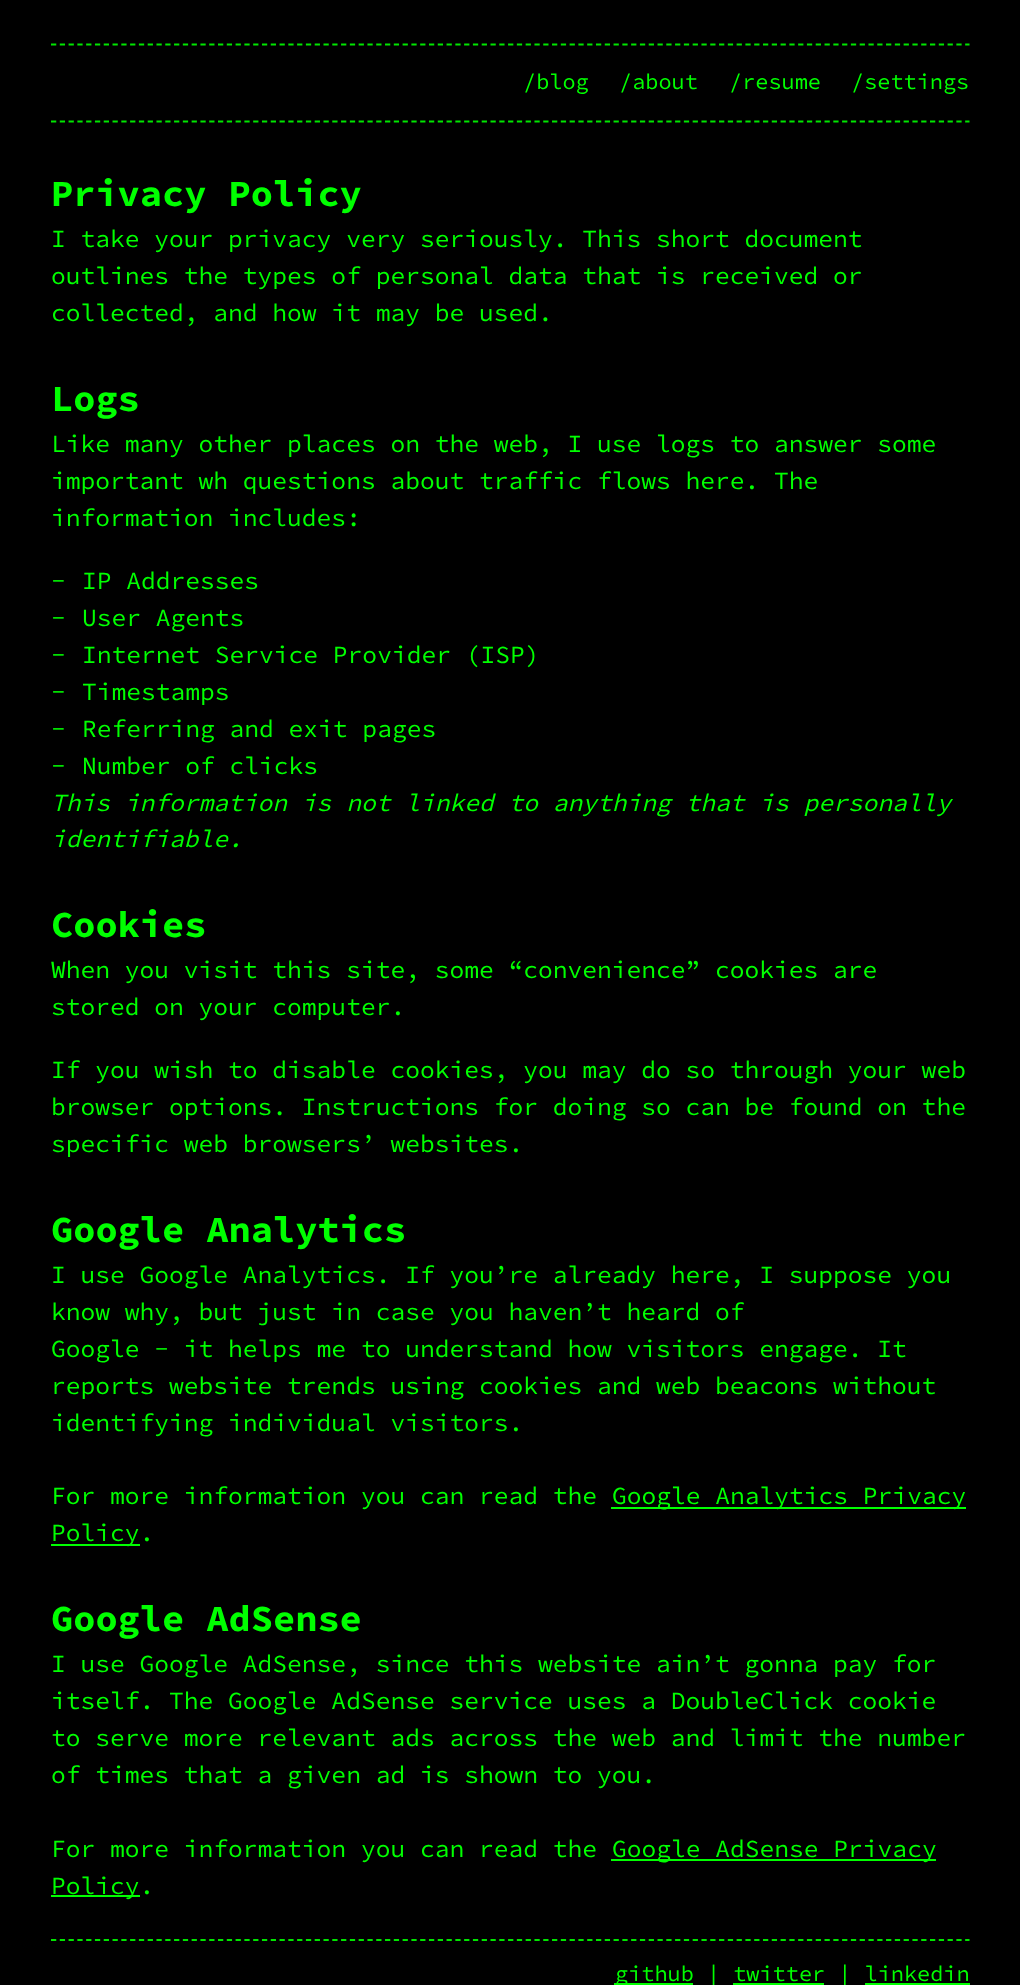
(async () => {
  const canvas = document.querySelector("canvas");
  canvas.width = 1020;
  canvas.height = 1985;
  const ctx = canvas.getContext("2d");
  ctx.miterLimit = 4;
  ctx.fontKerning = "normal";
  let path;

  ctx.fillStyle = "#000000";
  ctx.fillRect(0, 0, 1020, 1985);
  path = new Path2D("M51 44.5H969.5");
  ctx.strokeStyle = "#00e600";
  ctx.lineWidth = 1.8;
  ctx.setLineDash([5.25, 3.54]);
  ctx.stroke(path);
  path = new Path2D("M51 121.5H969.5");
  ctx.stroke(path);
  for (const [x, y, w, h, color] of [
    [611, 1507, 355, 2, "#00ff00"],
    [51, 1544, 89, 2, "#00ff00"],
    [611, 1859, 325, 2, "#00ff00"],
    [51, 1895, 89, 2, "#00ff00"],
  ]) {
    ctx.fillStyle = color;
    ctx.fillRect(x, y, w, h);
  }
  path = new Path2D("M51 1940H969.5");
  ctx.stroke(path);
  for (const [x, y, w, h, color] of [
    [614, 1983, 79, 2, "#00ff00"],
    [733, 1983, 91, 2, "#00ff00"],
    [865, 1983, 105, 2, "#00ff00"],
  ]) {
    ctx.fillStyle = color;
    ctx.fillRect(x, y, w, h);
  }
  ctx.font = "21.9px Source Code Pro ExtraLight";
  for (const [text, x, y] of [
    ["/blog", 523, 89],
    ["/about", 619, 89],
    ["/resume", 729, 89],
    ["/settings", 851, 89],
  ]) {
    ctx.fillText(text, x, y);
  }
  ctx.font = "bold 37px Source Code Pro ExtraLight";
  ctx.fillText("Privacy Policy", 51, 206);
  ctx.font = "24.6px Source Code Pro ExtraLight";
  for (const [text, x, y] of [
    ["I take your privacy very seriously. This short document", 51, 247],
    ["outlines the types of personal data that is received or", 51, 284],
    ["collected, and how it may be used.", 51, 321],
  ]) {
    ctx.fillText(text, x, y);
  }
  ctx.font = "bold 37px Source Code Pro ExtraLight";
  ctx.fillText("Logs", 51, 411);
  ctx.font = "24.6px Source Code Pro ExtraLight";
  for (const [text, x, y] of [
    ["Like many other places on the web, I use logs to answer some", 51, 452],
    ["important wh questions about traffic flows here. The", 51, 489],
    ["information includes:", 51, 526],
    ["-", 51, 589],
    ["IP Addresses", 82, 589],
    ["-", 51, 626],
    ["User Agents", 82, 626],
    ["-", 51, 663],
    ["Internet Service Provider (ISP)", 82, 663],
    ["-", 51, 700],
    ["Timestamps", 82, 700],
    ["-", 51, 737],
    ["Referring and exit pages", 82, 737],
    ["-", 51, 774],
    ["Number of clicks", 82, 774],
  ]) {
    ctx.fillText(text, x, y);
  }
  ctx.font = "italic 24.6px Source Code Pro ExtraLight";
  ctx.fillText("This information is not linked to anything that is personally", 51, 811);
  ctx.fillText("identifiable.", 51, 847);
  ctx.font = "bold 37px Source Code Pro ExtraLight";
  ctx.fillText("Cookies", 51, 937);
  ctx.font = "24.6px Source Code Pro ExtraLight";
  for (const [text, x, y] of [
    ["When you visit this site, some “convenience” cookies are", 51, 978],
    ["stored on your computer.", 51, 1015],
    ["If you wish to disable cookies, you may do so through your web", 51, 1078],
    ["browser options. Instructions for doing so can be found on the", 51, 1115],
    ["specific web browsers’ websites.", 51, 1152],
  ]) {
    ctx.fillText(text, x, y);
  }
  ctx.font = "bold 37px Source Code Pro ExtraLight";
  ctx.fillText("Google Analytics", 51, 1242);
  ctx.font = "24.6px Source Code Pro ExtraLight";
  for (const [text, x, y] of [
    ["I use Google Analytics. If you’re already here, I suppose you", 51, 1283],
    ["know why, but just in case you haven’t heard of", 51, 1320],
    ["Google - it helps me to understand how visitors engage. It", 51, 1357],
    ["reports website trends using cookies and web beacons without", 51, 1394],
    ["identifying individual visitors.", 51, 1431],
    ["For more information you can read the", 51, 1504],
    ["Google Analytics Privacy", 612, 1504],
    ["Policy.", 51, 1541],
  ]) {
    ctx.fillText(text, x, y);
  }
  ctx.font = "bold 37px Source Code Pro ExtraLight";
  ctx.fillText("Google AdSense", 51, 1631);
  ctx.font = "24.6px Source Code Pro ExtraLight";
  for (const [text, x, y] of [
    ["I use Google AdSense, since this website ain’t gonna pay for", 51, 1672],
    ["itself. The Google AdSense service uses a DoubleClick cookie", 51, 1709],
    ["to serve more relevant ads across the web and limit the number", 51, 1746],
    ["of times that a given ad is shown to you.", 51, 1783],
    ["For more information you can read the", 51, 1857],
    ["Google AdSense Privacy", 612, 1857],
    ["Policy.", 51, 1894],
  ]) {
    ctx.fillText(text, x, y);
  }
  ctx.font = "21.9px Source Code Pro ExtraLight";
  ctx.fillText("github | twitter | linkedin", 615, 1981);
})();
